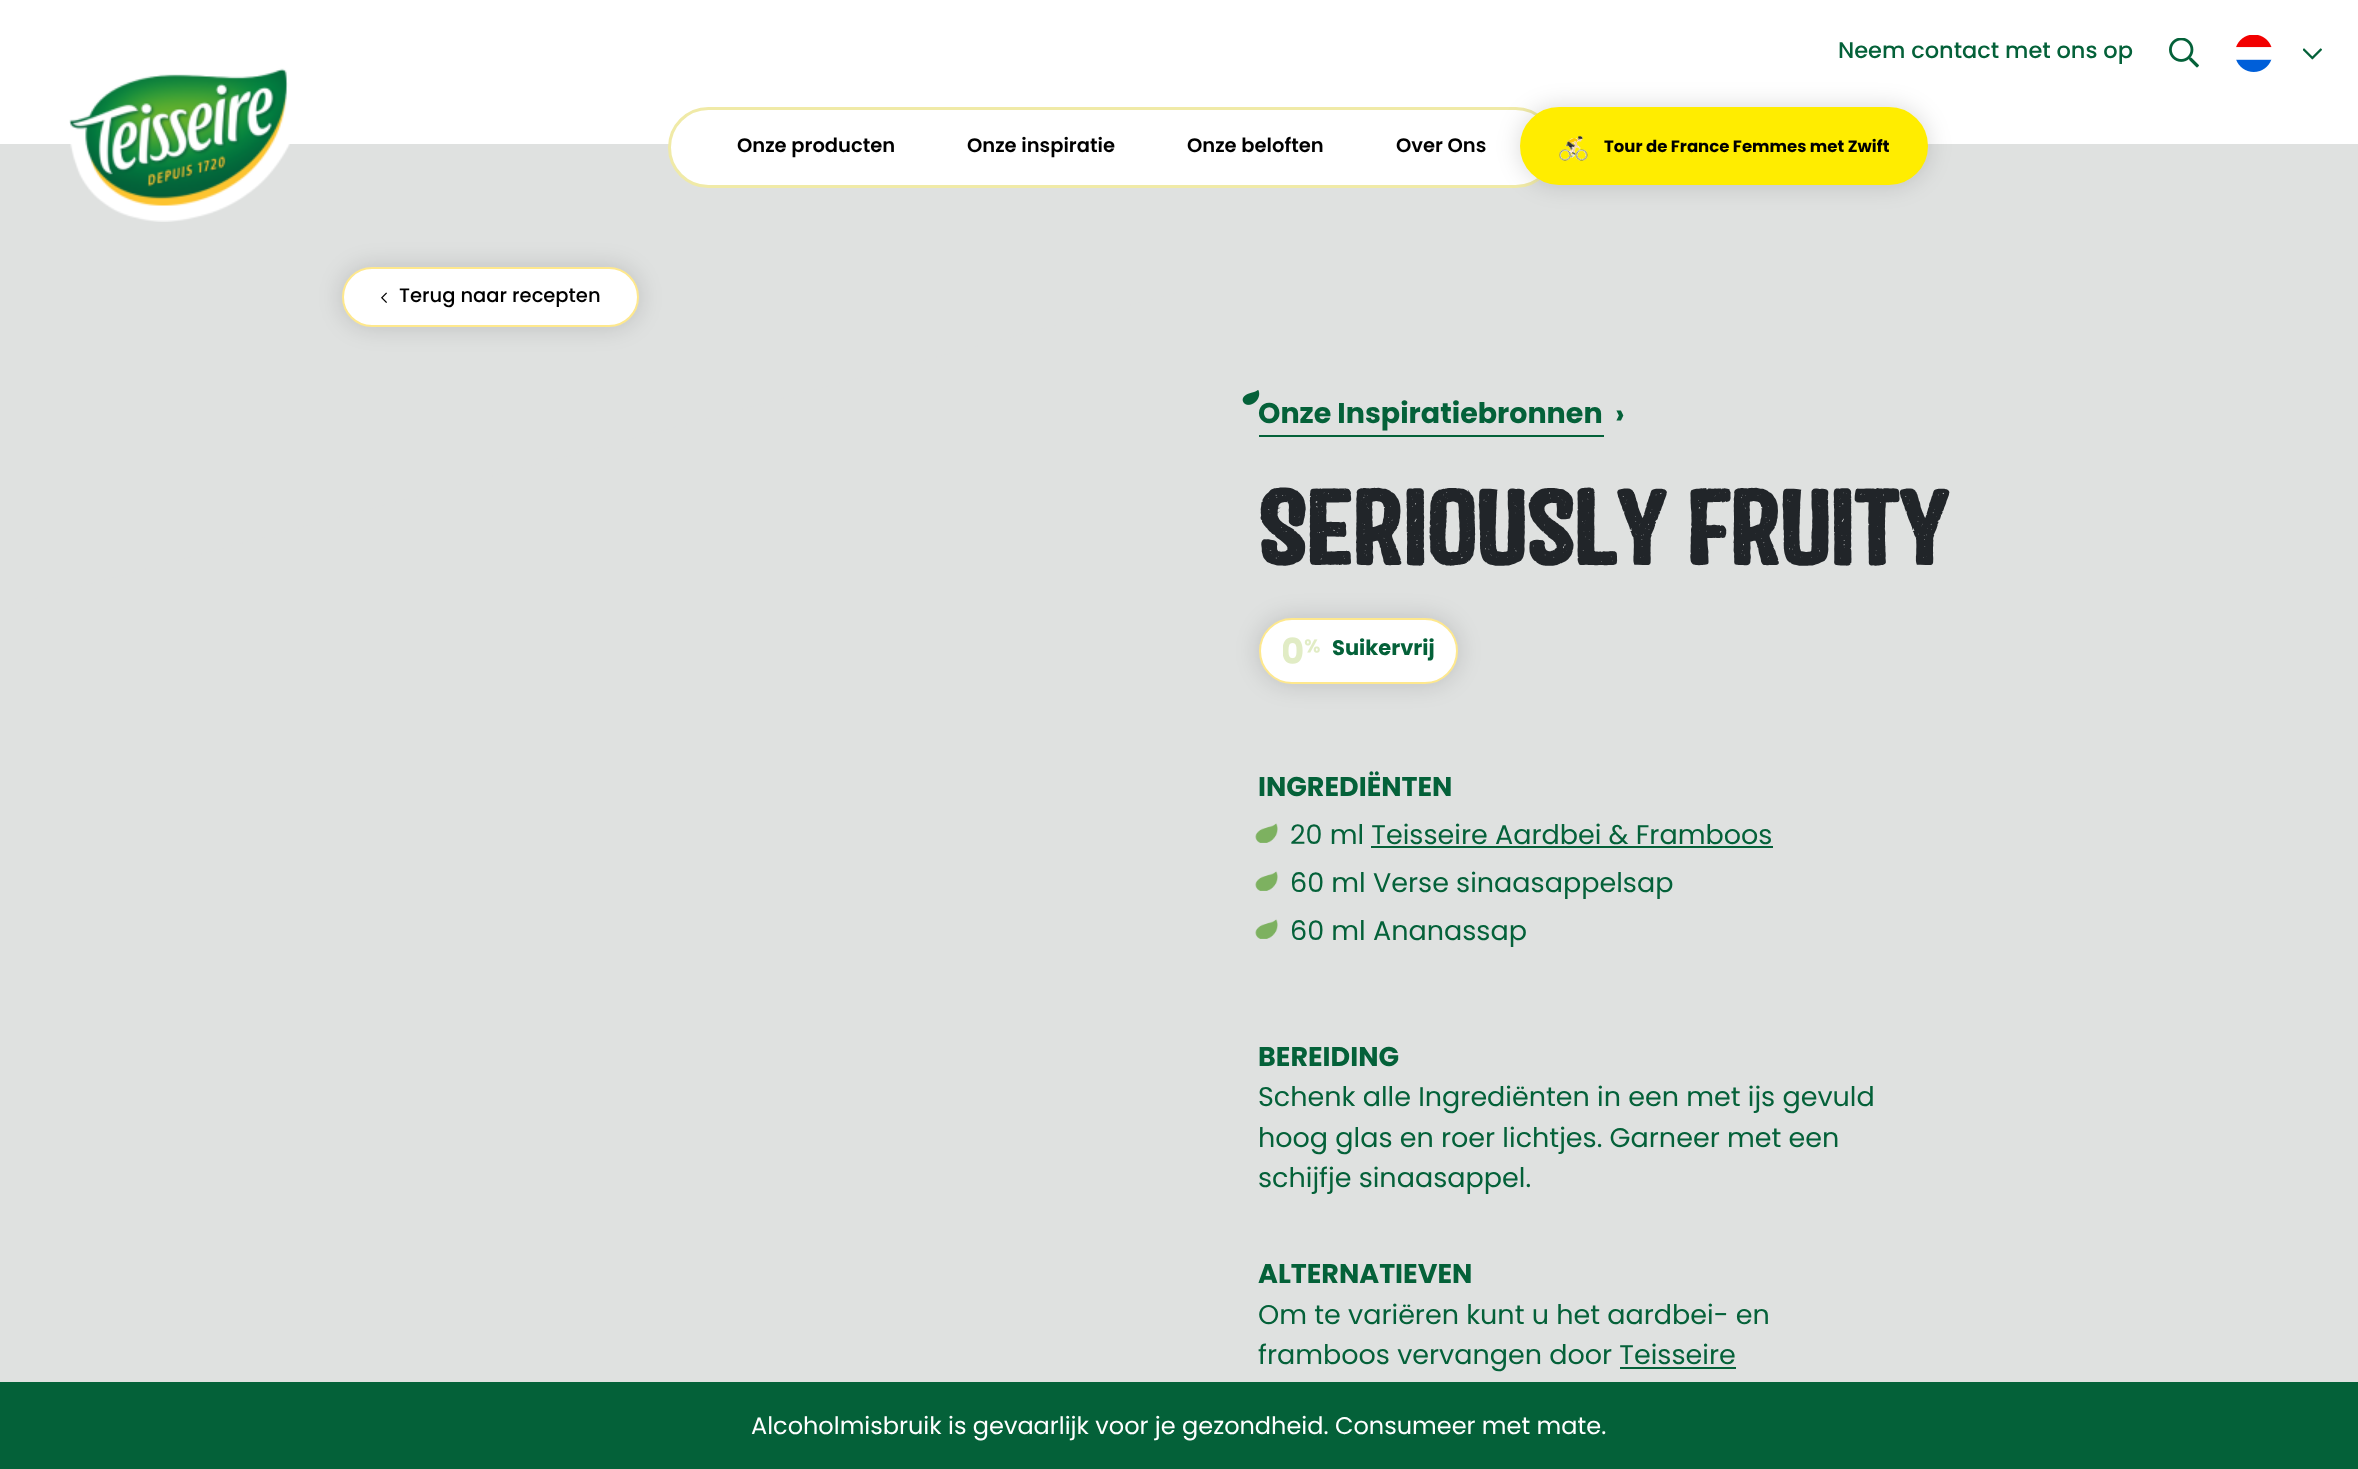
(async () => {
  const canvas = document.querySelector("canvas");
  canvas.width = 2358;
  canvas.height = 1469;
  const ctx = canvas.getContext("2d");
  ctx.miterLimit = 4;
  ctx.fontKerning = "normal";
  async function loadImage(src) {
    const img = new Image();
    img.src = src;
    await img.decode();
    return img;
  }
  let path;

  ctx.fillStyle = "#ffffff";
  ctx.fillRect(0, 0, 2358, 1469);
  ctx.fillStyle = "#dfe1e0";
  path = new Path2D("M0 458L2358-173V1404L0 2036Z");
  ctx.fill(path);
  path = new Path2D("M0 8L1179-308V292L0 608Z");
  ctx.fill(path);
  ctx.fillStyle = "#ffffff";
  ctx.fillRect(0, 0, 2358, 144);
  ctx.drawImage(await loadImage("img/1.png"), 2169, 38, 30, 30);
  ctx.drawImage(await loadImage("img/2.png"), 2236, 35, 36, 37);
  ctx.drawImage(await loadImage("img/3.png"), 2303, 48, 19, 12);
  ctx.drawImage(await loadImage("img/4.png"), 69, 68, 221, 154);
  ctx.beginPath();
  ctx.roundRect(669.5, 108.5, 885, 78, 39);
  ctx.fill();
  ctx.strokeStyle = "#f0eaa7";
  ctx.lineWidth = 3;
  ctx.stroke();
  ctx.fillStyle = "rgba(0, 0, 0, 0.15)";
  ctx.filter = "blur(12px)";
  ctx.beginPath();
  ctx.roundRect(1520, 107, 408, 78, 39);
  ctx.fill();
  ctx.filter = "none";
  ctx.fillStyle = "#ffed00";
  ctx.beginPath();
  ctx.roundRect(1521, 108, 406, 76, 38);
  ctx.fill();
  ctx.strokeStyle = "#ffed00";
  ctx.lineWidth = 2;
  ctx.stroke();
  ctx.drawImage(await loadImage("img/5.png"), 1559, 135, 29, 26);
  ctx.fillStyle = "rgba(0, 0, 0, 0.15)";
  ctx.filter = "blur(12px)";
  ctx.beginPath();
  ctx.roundRect(342, 267, 297, 60, 30);
  ctx.fill();
  ctx.filter = "none";
  ctx.fillStyle = "#ffffff";
  ctx.beginPath();
  ctx.roundRect(343, 268, 295, 58, 29);
  ctx.fill();
  ctx.strokeStyle = "#fee88d";
  ctx.stroke();
  ctx.drawImage(await loadImage("img/6.png"), 381, 292, 6, 11);
  ctx.fillStyle = "#046139";
  ctx.fillRect(1259, 435, 345, 2);
  ctx.fillStyle = "rgba(0, 0, 0, 0.15)";
  ctx.filter = "blur(12px)";
  ctx.beginPath();
  ctx.roundRect(1259, 618, 199, 66, 33);
  ctx.fill();
  ctx.filter = "none";
  ctx.fillStyle = "#ffffff";
  ctx.beginPath();
  ctx.roundRect(1260, 619, 197, 64, 32);
  ctx.fill();
  ctx.stroke();
  ctx.drawImage(await loadImage("img/8.png"), 1283, 637, 37, 27);
  ctx.drawImage(await loadImage("img/9.png"), 1255, 823, 23, 20);
  ctx.fillStyle = "#046139";
  ctx.fillRect(1371, 846, 402, 2);
  ctx.drawImage(await loadImage("img/9.png"), 1255, 871, 23, 20);
  ctx.drawImage(await loadImage("img/9.png"), 1255, 919, 23, 20);
  ctx.fillRect(1620, 1367, 116, 2);
  ctx.fillRect(0, 1382, 2358, 87);
  ctx.font = "500 22.5px Poppins";
  ctx.fillText("Neem contact met ons op", 1838, 58);
  ctx.font = "600 19.5px Poppins";
  ctx.fillStyle = "#000000";
  for (const [text, x, y] of [
    ["Onze producten", 737, 152],
    ["Onze inspiratie", 967, 152],
    ["Onze beloften", 1187, 152],
    ["Over Ons", 1396, 152],
  ]) {
    ctx.fillText(text, x, y);
  }
  ctx.font = "bold 16.5px Poppins";
  ctx.fillText("Tour de France Femmes met Zwift", 1604, 152);
  ctx.font = "500 19.5px Poppins";
  ctx.fillText("Terug naar recepten", 399, 302);
  ctx.font = "bold 28.5px Poppins";
  ctx.fillStyle = "#046139";
  ctx.fillText("Onze Inspiratiebronnen", 1258, 423);
  ctx.drawImage(await loadImage("img/7.png"), 1242, 390, 18, 15);
  ctx.fillText("›", 1615, 424);
  ctx.font = "bold 105px 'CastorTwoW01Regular'";
  ctx.fillStyle = "#212529";
  ctx.fillText("Seriously Fruity", 1258, 565);
  ctx.font = "bold 21px Poppins";
  ctx.fillStyle = "#046139";
  ctx.fillText("Suikervrij", 1332, 655);
  ctx.font = "bold 27px Poppins";
  ctx.fillText("INGREDIËNTEN", 1258, 796);
  ctx.font = "27px Poppins";
  for (const [text, x, y] of [
    ["20 ml Teisseire Aardbei & Framboos", 1290, 844],
    ["60 ml Verse sinaasappelsap", 1290, 892],
    ["60 ml Ananassap", 1290, 940],
  ]) {
    ctx.fillText(text, x, y);
  }
  ctx.font = "bold 27px Poppins";
  ctx.fillText("BEREIDING", 1258, 1066);
  ctx.font = "27px Poppins";
  for (const [text, x, y] of [
    ["Schenk alle Ingrediënten in een met ijs gevuld", 1258, 1106],
    ["hoog glas en roer lichtjes. Garneer met een", 1258, 1147],
    ["schijfje sinaasappel.", 1258, 1187],
  ]) {
    ctx.fillText(text, x, y);
  }
  ctx.font = "bold 27px Poppins";
  ctx.fillText("ALTERNATIEVEN", 1258, 1283);
  ctx.font = "27px Poppins";
  ctx.fillText("Om te variëren kunt u het aardbei- en", 1258, 1324);
  ctx.fillText("framboos vervangen door Teisseire", 1258, 1364);
  ctx.font = "24px Poppins";
  ctx.fillStyle = "#ffffff";
  ctx.fillText("Alcoholmisbruik is gevaarlijk voor je gezondheid. Consumeer met mate.", 751, 1434);
})();
